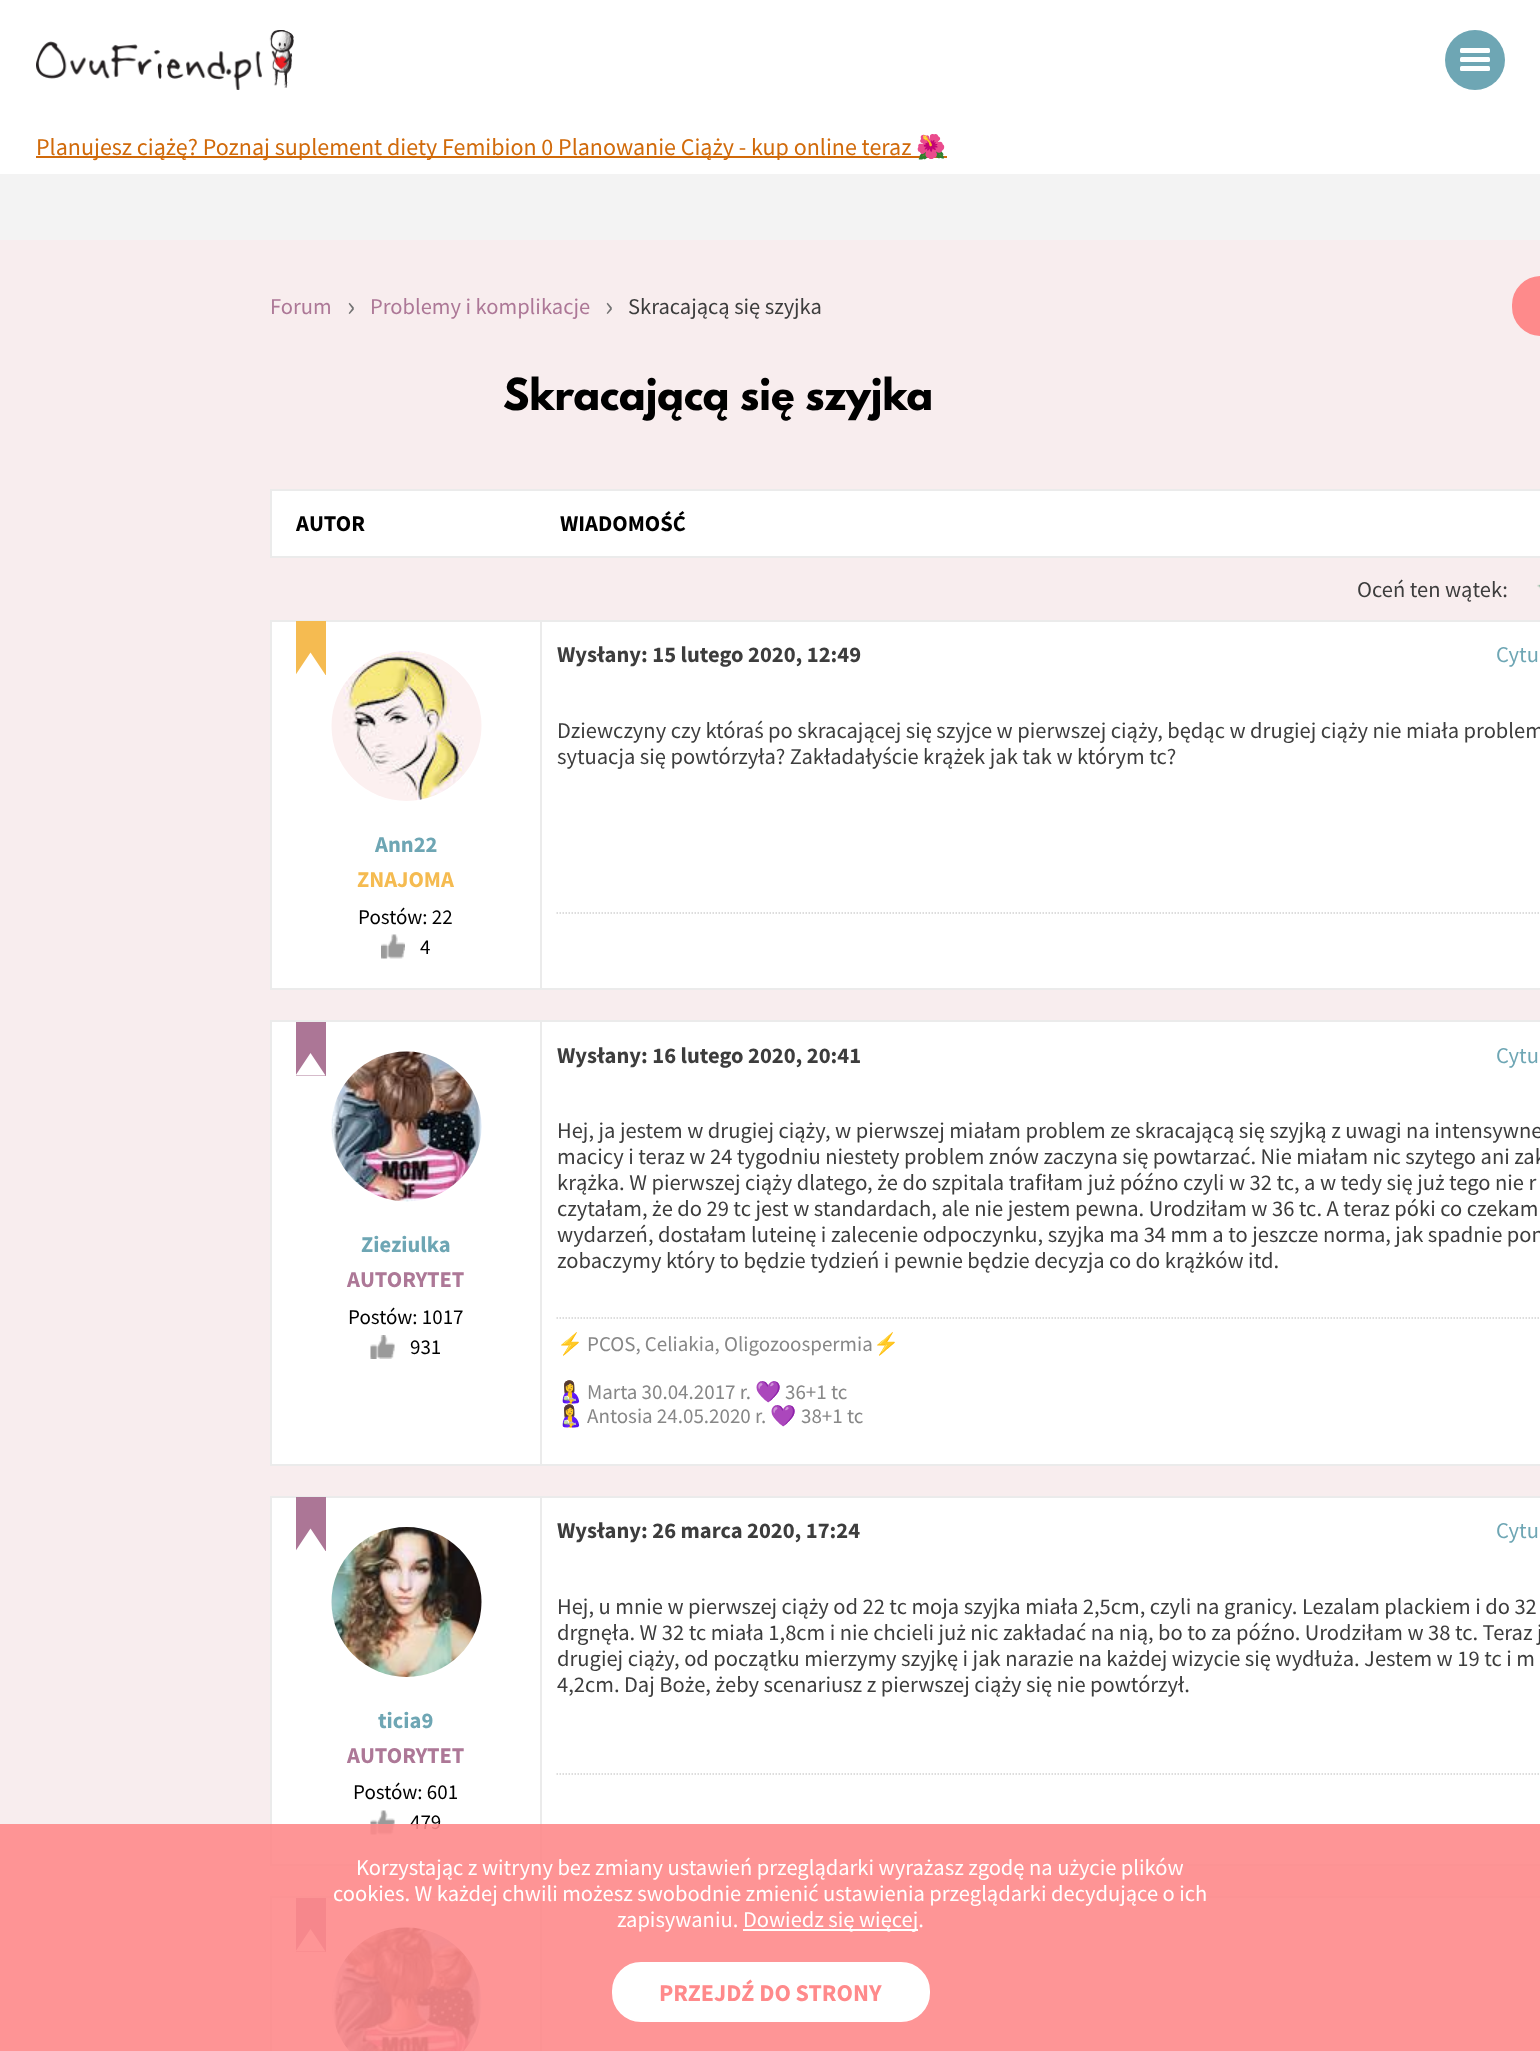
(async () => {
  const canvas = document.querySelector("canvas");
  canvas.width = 1540;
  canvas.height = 2051;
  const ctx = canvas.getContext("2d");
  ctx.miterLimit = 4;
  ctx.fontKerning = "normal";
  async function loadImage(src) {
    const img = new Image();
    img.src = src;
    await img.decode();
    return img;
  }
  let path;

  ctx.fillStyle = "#f8edee";
  ctx.fillRect(0, 0, 1540, 2051);
  ctx.fillStyle = "#ffffff";
  ctx.fillRect(0, 0, 1540, 174);
  ctx.drawImage(await loadImage("img/1.png"), 36, 30, 258, 60);
  ctx.fillStyle = "#6ea6b4";
  ctx.beginPath();
  ctx.arc(1475, 60, 30, 0, Math.PI * 2);
  ctx.fill();
  ctx.fillStyle = "#ffffff";
  ctx.beginPath();
  ctx.roundRect(1460, 48, 30, 5, 1.5);
  ctx.fill();
  ctx.beginPath();
  ctx.roundRect(1460, 57, 30, 5, 1.5);
  ctx.fill();
  ctx.beginPath();
  ctx.roundRect(1460, 66, 30, 5, 1.5);
  ctx.fill();
  ctx.fillStyle = "#d16a0a";
  ctx.fillRect(36, 156, 911, 2);
  ctx.fillStyle = "#f3f3f3";
  ctx.fillRect(0, 174, 1540, 66);
  ctx.fillStyle = "#fe8a8b";
  ctx.beginPath();
  ctx.roundRect(1513, 277, 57, 58, 28);
  ctx.fill();
  ctx.strokeStyle = "#fe8a8b";
  ctx.lineWidth = 2;
  ctx.stroke();
  ctx.fillStyle = "#ffffff";
  ctx.beginPath();
  ctx.rect(271, 490, 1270, 67);
  ctx.fill();
  ctx.strokeStyle = "#ebebeb";
  ctx.stroke();
  ctx.drawImage(await loadImage("img/2.png"), 1537, 584, 3, 5);
  ctx.beginPath();
  ctx.rect(271, 621, 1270, 368);
  ctx.fill();
  ctx.stroke();
  path = new Path2D("M556.5 913H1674");
  ctx.strokeStyle = "#d2d2d2";
  ctx.lineWidth = 1.5;
  ctx.setLineDash([1.5, 1.5]);
  ctx.stroke(path);
  ctx.fillStyle = "#ebebeb";
  ctx.fillRect(540, 621, 2, 368);
  ctx.fillStyle = "#f5bb51";
  ctx.fillRect(296, 621, 30, 54);
  ctx.fillStyle = "#ffffff";
  path = new Path2D("M325.5 675H295.5L310.5 652.5Z");
  ctx.fill(path);
  ctx.drawImage(await loadImage("img/3.png"), 331, 651, 151, 150);
  ctx.drawImage(await loadImage("img/4.png"), 381, 934, 24, 25);
  ctx.beginPath();
  ctx.rect(271, 1021, 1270, 444);
  ctx.fill();
  ctx.strokeStyle = "#ebebeb";
  ctx.lineWidth = 2;
  ctx.setLineDash([]);
  ctx.stroke();
  ctx.fillStyle = "#ebebeb";
  ctx.fillRect(540, 1022, 2, 442);
  ctx.fillStyle = "#ac7696";
  ctx.fillRect(296, 1022, 30, 54);
  ctx.fillStyle = "#ffffff";
  path = new Path2D("M325.5 1075.5H295.5L310.5 1053Z");
  ctx.fill(path);
  ctx.drawImage(await loadImage("img/5.png"), 331, 1051, 151, 151);
  ctx.drawImage(await loadImage("img/6.png"), 370, 1335, 25, 24);
  path = new Path2D("M556.5 1318H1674");
  ctx.strokeStyle = "#d2d2d2";
  ctx.lineWidth = 1.5;
  ctx.setLineDash([1.5, 1.5]);
  ctx.stroke(path);
  ctx.beginPath();
  ctx.rect(271, 1497, 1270, 368);
  ctx.fill();
  ctx.strokeStyle = "#ebebeb";
  ctx.lineWidth = 2;
  ctx.setLineDash([]);
  ctx.stroke();
  path = new Path2D("M556.5 1774H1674");
  ctx.strokeStyle = "#d2d2d2";
  ctx.lineWidth = 1.5;
  ctx.setLineDash([1.5, 1.5]);
  ctx.stroke(path);
  ctx.fillStyle = "#ebebeb";
  ctx.fillRect(540, 1497, 2, 368);
  ctx.fillStyle = "#ac7696";
  ctx.fillRect(296, 1497, 30, 54);
  ctx.fillStyle = "#ffffff";
  path = new Path2D("M325.5 1551H295.5L310.5 1528.5Z");
  ctx.fill(path);
  ctx.drawImage(await loadImage("img/7.png"), 331, 1527, 151, 150);
  ctx.drawImage(await loadImage("img/8.png"), 370, 1810, 25, 25);
  ctx.beginPath();
  ctx.rect(271, 1897, 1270, 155);
  ctx.fill();
  ctx.strokeStyle = "#ebebeb";
  ctx.lineWidth = 2;
  ctx.setLineDash([]);
  ctx.stroke();
  ctx.fillStyle = "#ebebeb";
  ctx.fillRect(540, 1898, 2, 153);
  ctx.fillStyle = "#ac7696";
  ctx.fillRect(296, 1898, 30, 54);
  ctx.fillStyle = "#ffffff";
  path = new Path2D("M325.5 1951.5H295.5L310.5 1929Z");
  ctx.fill(path);
  ctx.drawImage(await loadImage("img/9.png"), 331, 1927, 151, 124);
  ctx.font = "24px Source Sans Pro";
  ctx.fillStyle = "#d16a0a";
  ctx.fillText("Planujesz ciążę? Poznaj suplement diety Femibion 0 Planowanie Ciąży - kup online teraz", 36, 155);
  ctx.font = "24px Noto Color Emoji";
  ctx.fillText("🌺", 916, 155);
  ctx.font = "22.5px Source Sans Pro";
  ctx.fillStyle = "#ad7897";
  ctx.fillText("Forum", 270, 314);
  ctx.font = "30px Source Sans Pro";
  ctx.fillStyle = "#747474";
  ctx.fillText("›", 347, 316);
  ctx.font = "22.5px Source Sans Pro";
  ctx.fillStyle = "#ad7897";
  ctx.fillText("Problemy i komplikacje", 370, 314);
  ctx.font = "30px Source Sans Pro";
  ctx.fillStyle = "#747474";
  ctx.fillText("›", 605, 316);
  ctx.font = "22.5px Source Sans Pro";
  ctx.fillStyle = "#3d3d3d";
  ctx.fillText("Skracającą się szyjka", 628, 314);
  ctx.font = "bold 39px League Spartan";
  ctx.fillStyle = "#000000";
  ctx.fillText("Skracającą się szyjka", 503, 410);
  ctx.font = "bold 22.5px Source Sans Pro";
  ctx.fillText("AUTOR", 296, 531);
  ctx.fillText("WIADOMOŚĆ", 560, 531);
  ctx.font = "22.5px Source Sans Pro";
  ctx.fillStyle = "#3d3d3d";
  ctx.fillText("Oceń ten wątek:", 1357, 597);
  ctx.font = "bold 22.5px Source Sans Pro";
  ctx.fillText("Wysłany: 15 lutego 2020, 12:49", 557, 662);
  ctx.font = "22.5px Source Sans Pro";
  ctx.fillStyle = "#6ea6b4";
  ctx.fillText("Cytu", 1496, 662);
  ctx.fillStyle = "#3d3d3d";
  ctx.fillText("Dziewczyny czy któraś po skracającej się szyjce w pierwszej ciąży, będąc w drugiej ciąży nie miała problem", 557, 738);
  ctx.fillText("sytuacja się powtórzyła? Zakładałyście krążek jak tak w którym tc?", 557, 764);
  ctx.font = "bold 22.5px Source Sans Pro";
  ctx.fillStyle = "#6ea6b4";
  ctx.fillText("Ann22", 375, 852);
  ctx.fillStyle = "#f5bb51";
  ctx.fillText("ZNAJOMA", 357, 887);
  ctx.font = "21px Source Sans Pro";
  ctx.fillStyle = "#000000";
  ctx.fillText("Postów: 22", 358, 924);
  ctx.fillText("4", 420, 954);
  ctx.font = "bold 22.5px Source Sans Pro";
  ctx.fillStyle = "#6ea6b4";
  ctx.fillText("Zieziulka", 361, 1252);
  ctx.fillStyle = "#ad7897";
  ctx.fillText("AUTORYTET", 347, 1287);
  ctx.font = "21px Source Sans Pro";
  ctx.fillStyle = "#000000";
  ctx.fillText("Postów: 1017", 348, 1324);
  ctx.fillText("931", 410, 1354);
  ctx.font = "bold 22.5px Source Sans Pro";
  ctx.fillStyle = "#3d3d3d";
  ctx.fillText("Wysłany: 16 lutego 2020, 20:41", 557, 1063);
  ctx.font = "22.5px Source Sans Pro";
  ctx.fillStyle = "#6ea6b4";
  ctx.fillText("Cytu", 1496, 1063);
  ctx.fillStyle = "#3d3d3d";
  for (const [text, x, y] of [
    ["Hej, ja jestem w drugiej ciąży, w pierwszej miałam problem ze skracającą się szyjką z uwagi na intensywne", 557, 1138],
    ["macicy i teraz w 24 tygodniu niestety problem znów zaczyna się powtarzać. Nie miałam nic szytego ani zak", 557, 1164],
    ["krążka. W pierwszej ciąży dlatego, że do szpitala trafiłam już późno czyli w 32 tc, a w tedy się już tego nie r", 557, 1190],
    ["czytałam, że do 29 tc jest w standardach, ale nie jestem pewna. Urodziłam w 36 tc. A teraz póki co czekam", 557, 1216],
    ["wydarzeń, dostałam luteinę i zalecenie odpoczynku, szyjka ma 34 mm a to jeszcze norma, jak spadnie pon", 557, 1242],
    ["zobaczymy który to będzie tydzień i pewnie będzie decyzja co do krążków itd.", 557, 1268],
  ]) {
    ctx.fillText(text, x, y);
  }
  ctx.font = "21px Noto Color Emoji";
  ctx.fillStyle = "#878787";
  ctx.fillText("⚡", 557, 1351);
  ctx.font = "21px Source Sans Pro";
  ctx.fillText("PCOS, Celiakia, Oligozoospermia", 587, 1351);
  ctx.font = "21px Noto Color Emoji";
  ctx.fillText("⚡", 873, 1351);
  ctx.fillText("🤱", 557, 1399);
  ctx.font = "21px Source Sans Pro";
  ctx.fillText("Marta 30.04.2017 r.", 587, 1399);
  ctx.font = "21px Noto Color Emoji";
  ctx.fillText("💜", 755, 1399);
  ctx.font = "21px Source Sans Pro";
  ctx.fillText("36+1 tc", 785, 1399);
  ctx.font = "21px Noto Color Emoji";
  ctx.fillText("🤱", 557, 1423);
  ctx.font = "21px Source Sans Pro";
  ctx.fillText("Antosia 24.05.2020 r.", 587, 1423);
  ctx.font = "21px Noto Color Emoji";
  ctx.fillText("💜", 770, 1423);
  ctx.font = "21px Source Sans Pro";
  ctx.fillText("38+1 tc", 801, 1423);
  ctx.font = "bold 22.5px Source Sans Pro";
  ctx.fillStyle = "#3d3d3d";
  ctx.fillText("Wysłany: 26 marca 2020, 17:24", 557, 1538);
  ctx.font = "22.5px Source Sans Pro";
  ctx.fillStyle = "#6ea6b4";
  ctx.fillText("Cytu", 1496, 1538);
  ctx.fillStyle = "#3d3d3d";
  for (const [text, x, y] of [
    ["Hej, u mnie w pierwszej ciąży od 22 tc moja szyjka miała 2,5cm, czyli na granicy. Lezalam plackiem i do 32", 557, 1614],
    ["drgnęła. W 32 tc miała 1,8cm i nie chcieli już nic zakładać na nią, bo to za późno. Urodziłam w 38 tc. Teraz j", 557, 1640],
    ["drugiej ciąży, od początku mierzymy szyjkę i jak narazie na każdej wizycie się wydłuża. Jestem w 19 tc i m", 557, 1666],
    ["4,2cm. Daj Boże, żeby scenariusz z pierwszej ciąży się nie powtórzył.", 557, 1692],
  ]) {
    ctx.fillText(text, x, y);
  }
  ctx.font = "bold 22.5px Source Sans Pro";
  ctx.fillStyle = "#6ea6b4";
  ctx.fillText("ticia9", 378, 1728);
  ctx.fillStyle = "#ad7897";
  ctx.fillText("AUTORYTET", 347, 1763);
  ctx.font = "21px Source Sans Pro";
  ctx.fillStyle = "#000000";
  ctx.fillText("Postów: 601", 353, 1799);
  ctx.fillText("479", 410, 1829);
  ctx.fillStyle = "rgba(254, 138, 139, 0.9)";
  ctx.fillRect(0, 1824, 1540, 227);
  ctx.font = "22.5px Source Sans Pro";
  ctx.fillStyle = "#ffffff";
  for (const [text, x, y] of [
    ["Korzystając z witryny bez zmiany ustawień przeglądarki wyrażasz zgodę na użycie plików", 356, 1875],
    ["cookies. W każdej chwili możesz swobodnie zmienić ustawienia przeglądarki decydujące o ich", 333, 1901],
    ["zapisywaniu.", 617, 1927],
  ]) {
    ctx.fillText(text, x, y);
  }
  ctx.fillRect(743, 1929, 175, 2);
  ctx.fillText("Dowiedz się więcej.", 743, 1927);
  ctx.beginPath();
  ctx.roundRect(613, 1963, 316, 58, 28);
  ctx.fill();
  ctx.strokeStyle = "#ffffff";
  ctx.stroke();
  ctx.font = "bold 24px Source Sans Pro";
  ctx.fillStyle = "#ff8a8b";
  ctx.fillText("PRZEJDŹ DO STRONY", 659, 2001);
})();
